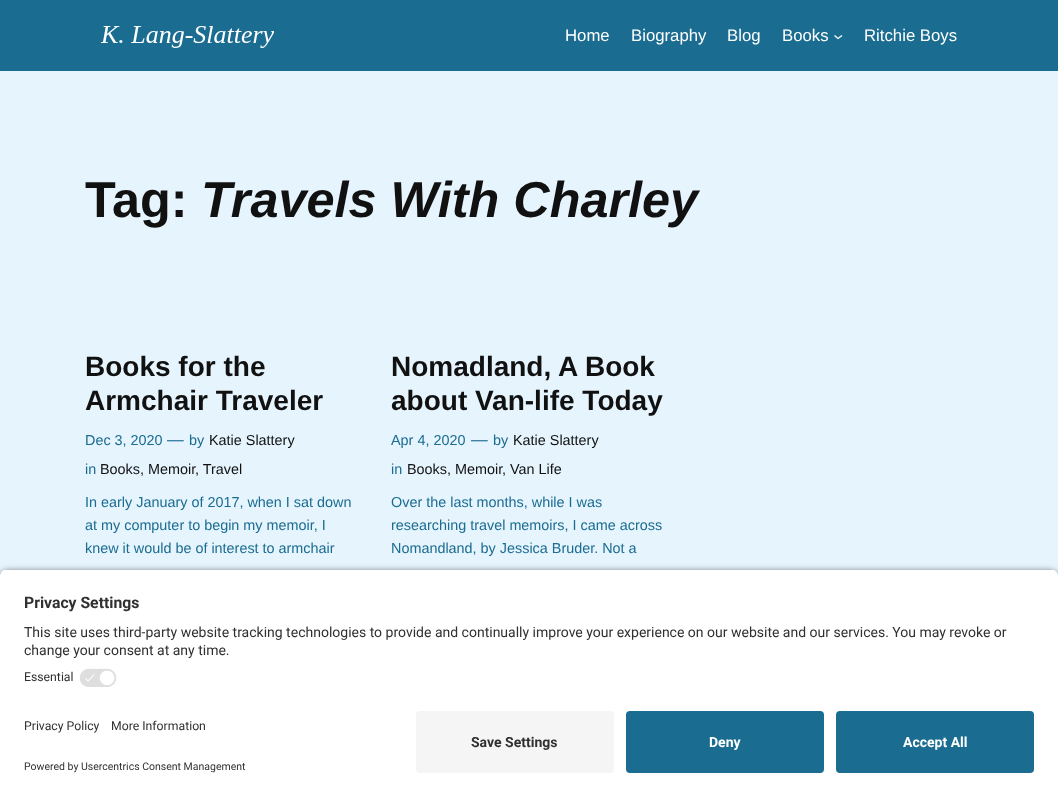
(async () => {
  const canvas = document.querySelector("canvas");
  canvas.width = 1058;
  canvas.height = 797;
  const ctx = canvas.getContext("2d");
  ctx.miterLimit = 4;
  ctx.fontKerning = "normal";
  async function loadImage(src) {
    const img = new Image();
    img.src = src;
    await img.decode();
    return img;
  }
  let path;

  ctx.fillStyle = "#e6f4fd";
  ctx.fillRect(0, 0, 1058, 797);
  ctx.fillStyle = "#1a6c91";
  ctx.fillRect(0, 0, 1058, 71);
  ctx.drawImage(await loadImage("img/1.png"), 101, 26, 173, 22);
  path = new Path2D("M834.5 35.5L838 38.5L842 35.5");
  ctx.strokeStyle = "#ffffff";
  ctx.lineWidth = 1.3;
  ctx.stroke(path);
  ctx.fillStyle = "rgba(0, 0, 0, 0.8)";
  ctx.filter = "blur(3.5px)";
  ctx.beginPath();
  ctx.roundRect(0, 572, 1058, 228, 8);
  ctx.fill();
  ctx.filter = "none";
  ctx.save();
  ctx.beginPath();
  ctx.roundRect(0, 569, 1058, 134, [8, 8, 0, 0]);
  ctx.clip();
  ctx.fillStyle = "#ffffff";
  ctx.fillRect(0, 570, 1058, 133);
  ctx.fillRect(0, 570, 1058, 93);
  ctx.restore();
  ctx.drawImage(await loadImage("img/2.png"), 79, 668, 38, 19);
  ctx.fillStyle = "#ffffff";
  ctx.fillRect(0, 703, 1058, 94);
  ctx.fillStyle = "#f5f5f5";
  ctx.beginPath();
  ctx.roundRect(416, 711, 198, 62, 4);
  ctx.fill();
  ctx.fillStyle = "#1a6c91";
  ctx.beginPath();
  ctx.roundRect(626, 711, 198, 62, 4);
  ctx.fill();
  ctx.beginPath();
  ctx.roundRect(836, 711, 198, 62, 4);
  ctx.fill();
  ctx.font = "16.75px Liberation Sans";
  ctx.fillStyle = "#ffffff";
  for (const [text, x, y] of [
    ["Home", 565, 41],
    ["Biography", 631, 41],
    ["Blog", 727, 41],
    ["Books", 782, 41],
    ["Ritchie Boys", 864, 41],
  ]) {
    ctx.fillText(text, x, y);
  }
  ctx.font = "bold 50.4px Liberation Sans";
  ctx.fillStyle = "#111111";
  ctx.fillText("Tag:", 85, 217);
  ctx.font = "italic bold 50.4px Liberation Sans";
  ctx.fillText("Travels With Charley", 201, 217);
  ctx.font = "bold 28px Liberation Sans";
  ctx.fillText("Books for the", 85, 376);
  ctx.fillText("Armchair Traveler", 85, 410);
  ctx.font = "14.4px Liberation Sans";
  ctx.fillStyle = "#1a6c91";
  ctx.fillText("Dec 3, 2020", 85, 445);
  ctx.font = "16.75px Liberation Sans";
  ctx.fillText("—", 167, 445);
  ctx.font = "14.4px Liberation Sans";
  ctx.fillText("by", 189, 445);
  ctx.fillStyle = "#111111";
  ctx.fillText("Katie Slattery", 209, 445);
  ctx.fillStyle = "#1a6c91";
  ctx.fillText("in", 85, 474);
  ctx.fillStyle = "#111111";
  ctx.fillText("Books, Memoir", 100, 474);
  ctx.fillText(", Travel", 195, 474);
  ctx.fillStyle = "#1a6c91";
  for (const [text, x, y] of [
    ["In early January of 2017, when I sat down", 85, 507],
    ["at my computer to begin my memoir, I", 85, 530],
    ["knew it would be of interest to armchair", 85, 553],
  ]) {
    ctx.fillText(text, x, y);
  }
  ctx.font = "bold 28px Liberation Sans";
  ctx.fillStyle = "#111111";
  ctx.fillText("Nomadland, A Book", 391, 376);
  ctx.fillText("about Van-life Today", 391, 410);
  ctx.font = "14.4px Liberation Sans";
  ctx.fillStyle = "#1a6c91";
  ctx.fillText("Apr 4, 2020", 391, 445);
  ctx.font = "16.75px Liberation Sans";
  ctx.fillText("—", 471, 445);
  ctx.font = "14.4px Liberation Sans";
  ctx.fillText("by", 493, 445);
  ctx.fillStyle = "#111111";
  ctx.fillText("Katie Slattery", 513, 445);
  ctx.fillStyle = "#1a6c91";
  ctx.fillText("in", 391, 474);
  ctx.fillStyle = "#111111";
  ctx.fillText("Books, Memoir", 407, 474);
  ctx.fillText(", Van Life", 502, 474);
  ctx.fillStyle = "#1a6c91";
  for (const [text, x, y] of [
    ["Over the last months, while I was", 391, 507],
    ["researching travel memoirs, I came across", 391, 530],
    ["Nomandland, by Jessica Bruder. Not a", 391, 553],
  ]) {
    ctx.fillText(text, x, y);
  }
  ctx.font = "bold 15.75px Roboto";
  ctx.fillStyle = "#303030";
  ctx.fillText("Privacy Settings", 24, 608);
  ctx.font = "14px Roboto";
  ctx.fillText("This site uses third-party website tracking technologies to provide and continually improve your experience on our website and our services. You may revoke or", 24, 637);
  ctx.fillText("change your consent at any time.", 24, 655);
  ctx.font = "12.25px Roboto";
  for (const [text, x, y] of [
    ["Essential", 24, 681],
    ["Privacy Policy", 24, 730],
    ["More Information", 111, 730],
  ]) {
    ctx.fillText(text, x, y);
  }
  ctx.font = "10.5px Roboto";
  ctx.fillText("Powered by Usercentrics Consent Management", 24, 770);
  ctx.font = "bold 14px Roboto";
  ctx.fillText("Save Settings", 471, 747);
  ctx.fillStyle = "#ffffff";
  ctx.fillText("Deny", 709, 747);
  ctx.fillText("Accept All", 903, 747);
})();
